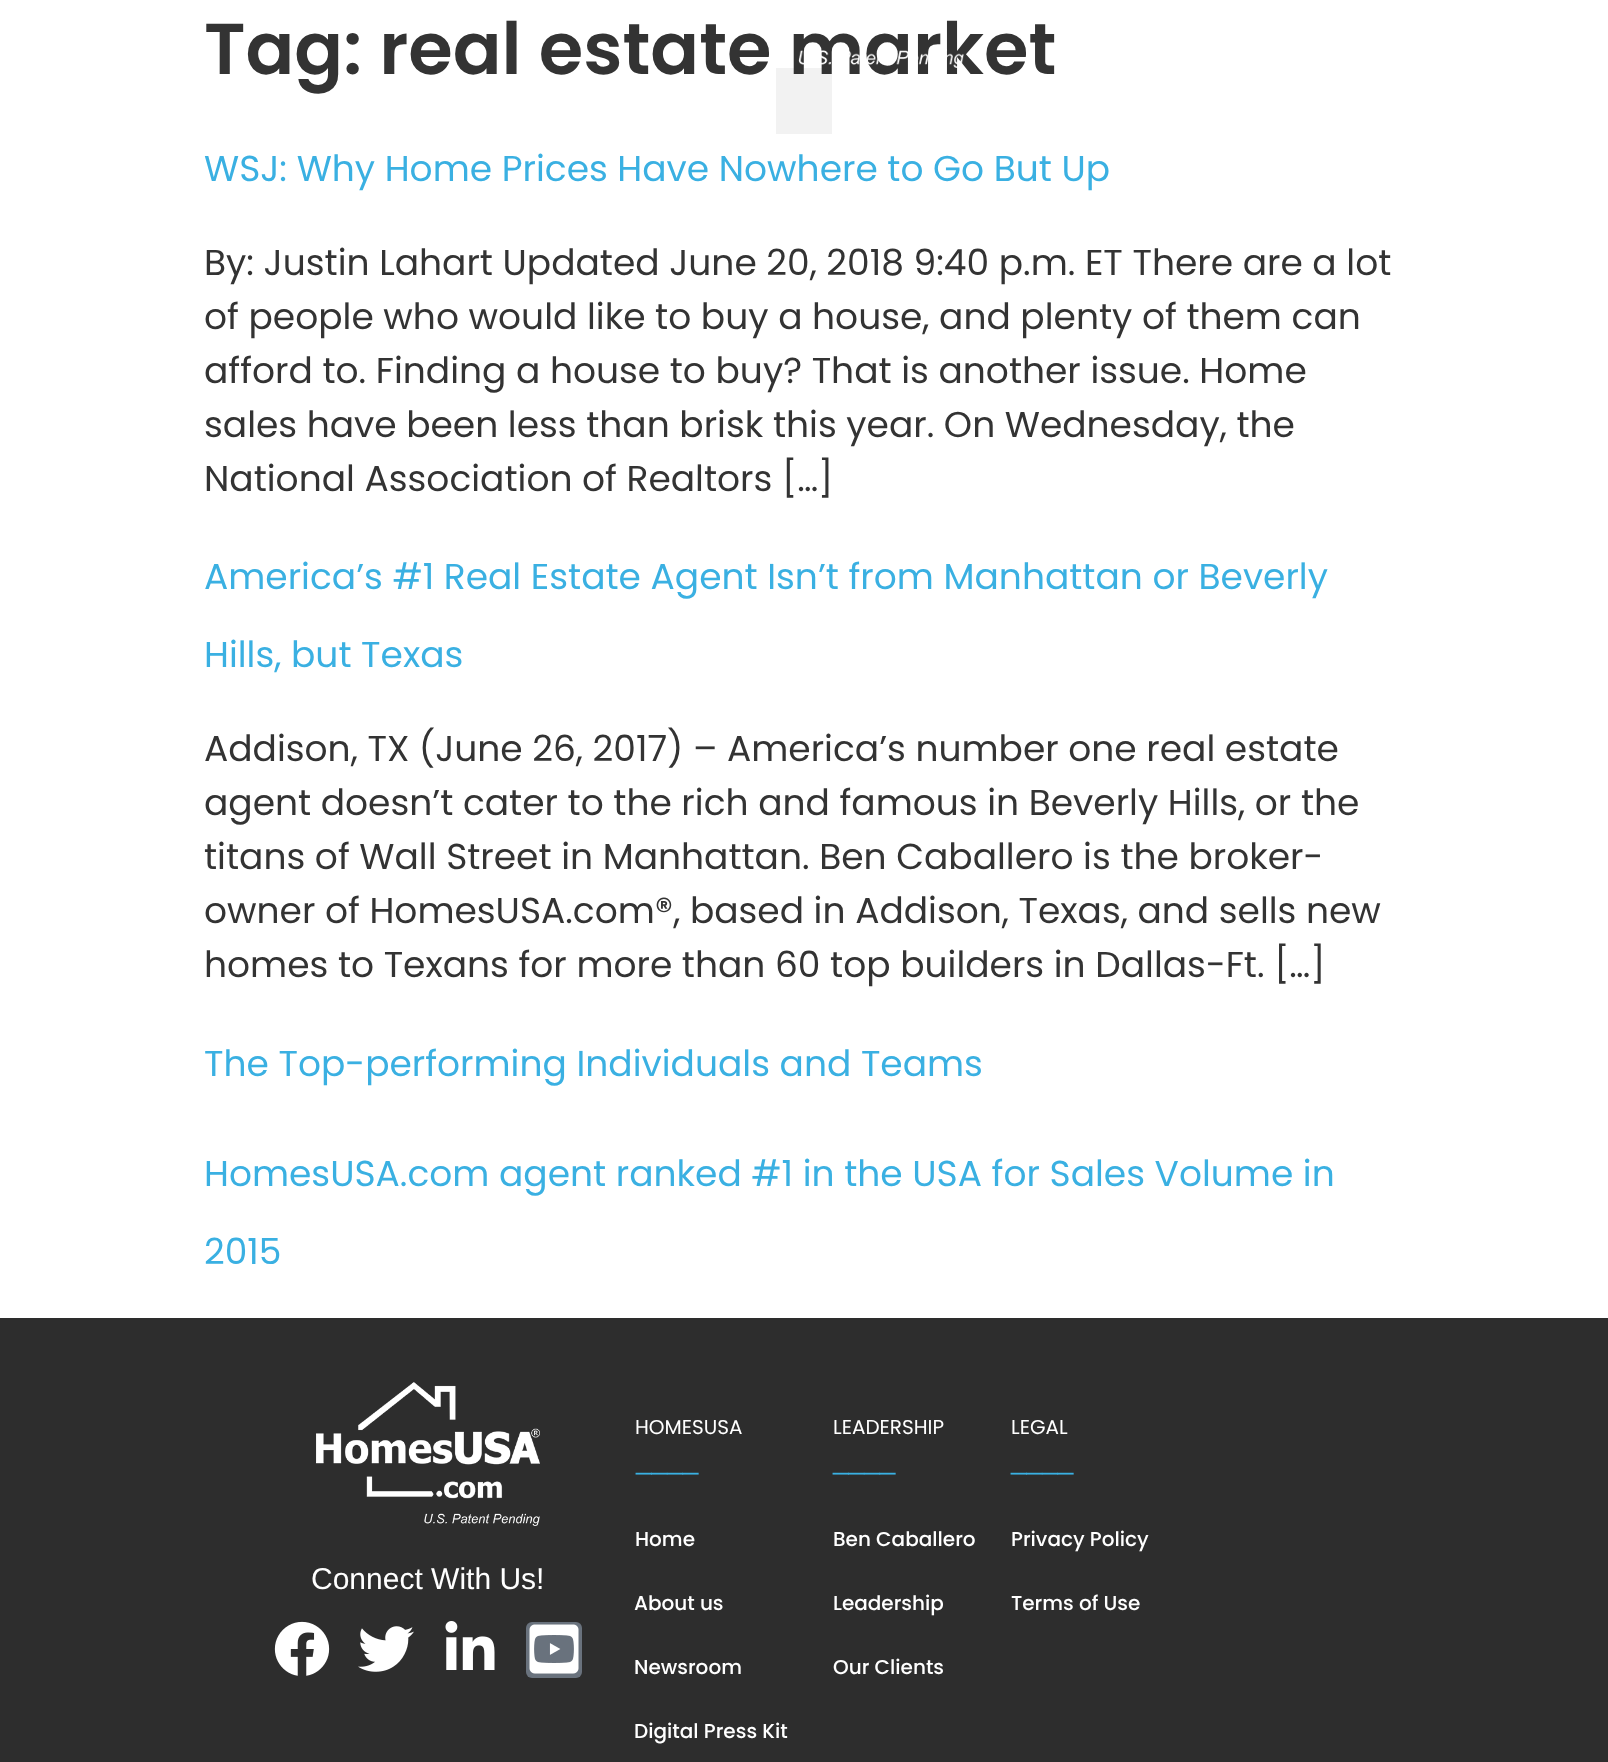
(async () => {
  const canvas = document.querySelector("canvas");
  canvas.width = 1608;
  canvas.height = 1762;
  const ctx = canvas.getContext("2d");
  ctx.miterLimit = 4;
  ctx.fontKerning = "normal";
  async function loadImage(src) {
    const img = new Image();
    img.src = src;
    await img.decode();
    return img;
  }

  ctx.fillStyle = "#ffffff";
  ctx.fillRect(0, 0, 1608, 1762);
  ctx.fillStyle = "rgba(0, 0, 0, 0.05)";
  ctx.fillRect(776, 68, 56, 66);
  ctx.fillStyle = "#2d2d2d";
  ctx.fillRect(0, 1318, 1608, 444);
  ctx.drawImage(await loadImage("img/2.png"), 316, 1382, 224, 144);
  ctx.drawImage(await loadImage("img/3.png"), 274, 1621, 56, 55);
  ctx.drawImage(await loadImage("img/4.png"), 358, 1626, 56, 46);
  ctx.drawImage(await loadImage("img/5.png"), 445, 1621, 50, 49);
  ctx.fillStyle = "#69727d";
  ctx.beginPath();
  ctx.roundRect(526, 1622, 56, 56, 6);
  ctx.fill();
  ctx.drawImage(await loadImage("img/6.png"), 529, 1624, 50, 50);
  ctx.font = "600 72px Poppins";
  ctx.fillStyle = "#333333";
  ctx.fillText("Tag: real estate market", 204, 74);
  ctx.font = "36px Poppins";
  ctx.fillStyle = "#3ab0e2";
  ctx.fillText("WSJ: Why Home Prices Have Nowhere to Go But Up", 204, 181);
  ctx.fillStyle = "#333333";
  for (const [text, x, y] of [
    ["By: Justin Lahart Updated June 20, 2018 9:40 p.m. ET There are a lot", 204, 275],
    ["of people who would like to buy a house, and plenty of them can", 204, 329],
    ["afford to. Finding a house to buy? That is another issue. Home", 204, 383],
    ["sales have been less than brisk this year. On Wednesday, the", 204, 437],
    ["National Association of Realtors […]", 204, 491],
  ]) {
    ctx.fillText(text, x, y);
  }
  ctx.fillStyle = "#3ab0e2";
  ctx.fillText("America’s #1 Real Estate Agent Isn’t from Manhattan or Beverly", 204, 589);
  ctx.fillText("Hills, but Texas", 204, 667);
  ctx.fillStyle = "#333333";
  for (const [text, x, y] of [
    ["Addison, TX (June 26, 2017) – America’s number one real estate", 204, 761],
    ["agent doesn’t cater to the rich and famous in Beverly Hills, or the", 204, 815],
    ["titans of Wall Street in Manhattan. Ben Caballero is the broker-", 204, 869],
    ["owner of HomesUSA.com®, based in Addison, Texas, and sells new", 204, 923],
    ["homes to Texans for more than 60 top builders in Dallas-Ft. […]", 204, 977],
  ]) {
    ctx.fillText(text, x, y);
  }
  ctx.fillStyle = "#3ab0e2";
  for (const [text, x, y] of [
    ["The Top-performing Individuals and Teams", 204, 1076],
    ["HomesUSA.com agent ranked #1 in the USA for Sales Volume in", 204, 1186],
    ["2015", 204, 1264],
  ]) {
    ctx.fillText(text, x, y);
  }
  ctx.drawImage(await loadImage("img/1.png"), 798, 50, 166, 18);
  ctx.font = "30px Liberation Sans";
  ctx.fillStyle = "#ffffff";
  ctx.fillText("Connect With Us!", 311, 1589);
  ctx.font = "20px Poppins";
  ctx.fillText("HOMESUSA", 635, 1434);
  ctx.font = "28px Liberation Sans";
  ctx.fillStyle = "#3ab0e2";
  ctx.fillText("____", 636, 1469);
  ctx.font = "500 20px Poppins";
  ctx.fillStyle = "#ffffff";
  for (const [text, x, y] of [
    ["Home", 635, 1546],
    ["About us", 634, 1610],
    ["Newsroom", 634, 1674],
    ["Digital Press Kit", 634, 1738],
  ]) {
    ctx.fillText(text, x, y);
  }
  ctx.font = "20px Poppins";
  ctx.fillText("LEADERSHIP", 833, 1434);
  ctx.font = "28px Liberation Sans";
  ctx.fillStyle = "#3ab0e2";
  ctx.fillText("____", 833, 1469);
  ctx.font = "500 20px Poppins";
  ctx.fillStyle = "#ffffff";
  for (const [text, x, y] of [
    ["Ben Caballero", 833, 1546],
    ["Leadership", 833, 1610],
    ["Our Clients", 833, 1674],
  ]) {
    ctx.fillText(text, x, y);
  }
  ctx.font = "20px Poppins";
  ctx.fillText("LEGAL", 1011, 1434);
  ctx.font = "28px Liberation Sans";
  ctx.fillStyle = "#3ab0e2";
  ctx.fillText("____", 1011, 1469);
  ctx.font = "500 20px Poppins";
  ctx.fillStyle = "#ffffff";
  ctx.fillText("Privacy Policy", 1011, 1546);
  ctx.fillText("Terms of Use", 1011, 1610);
})();
